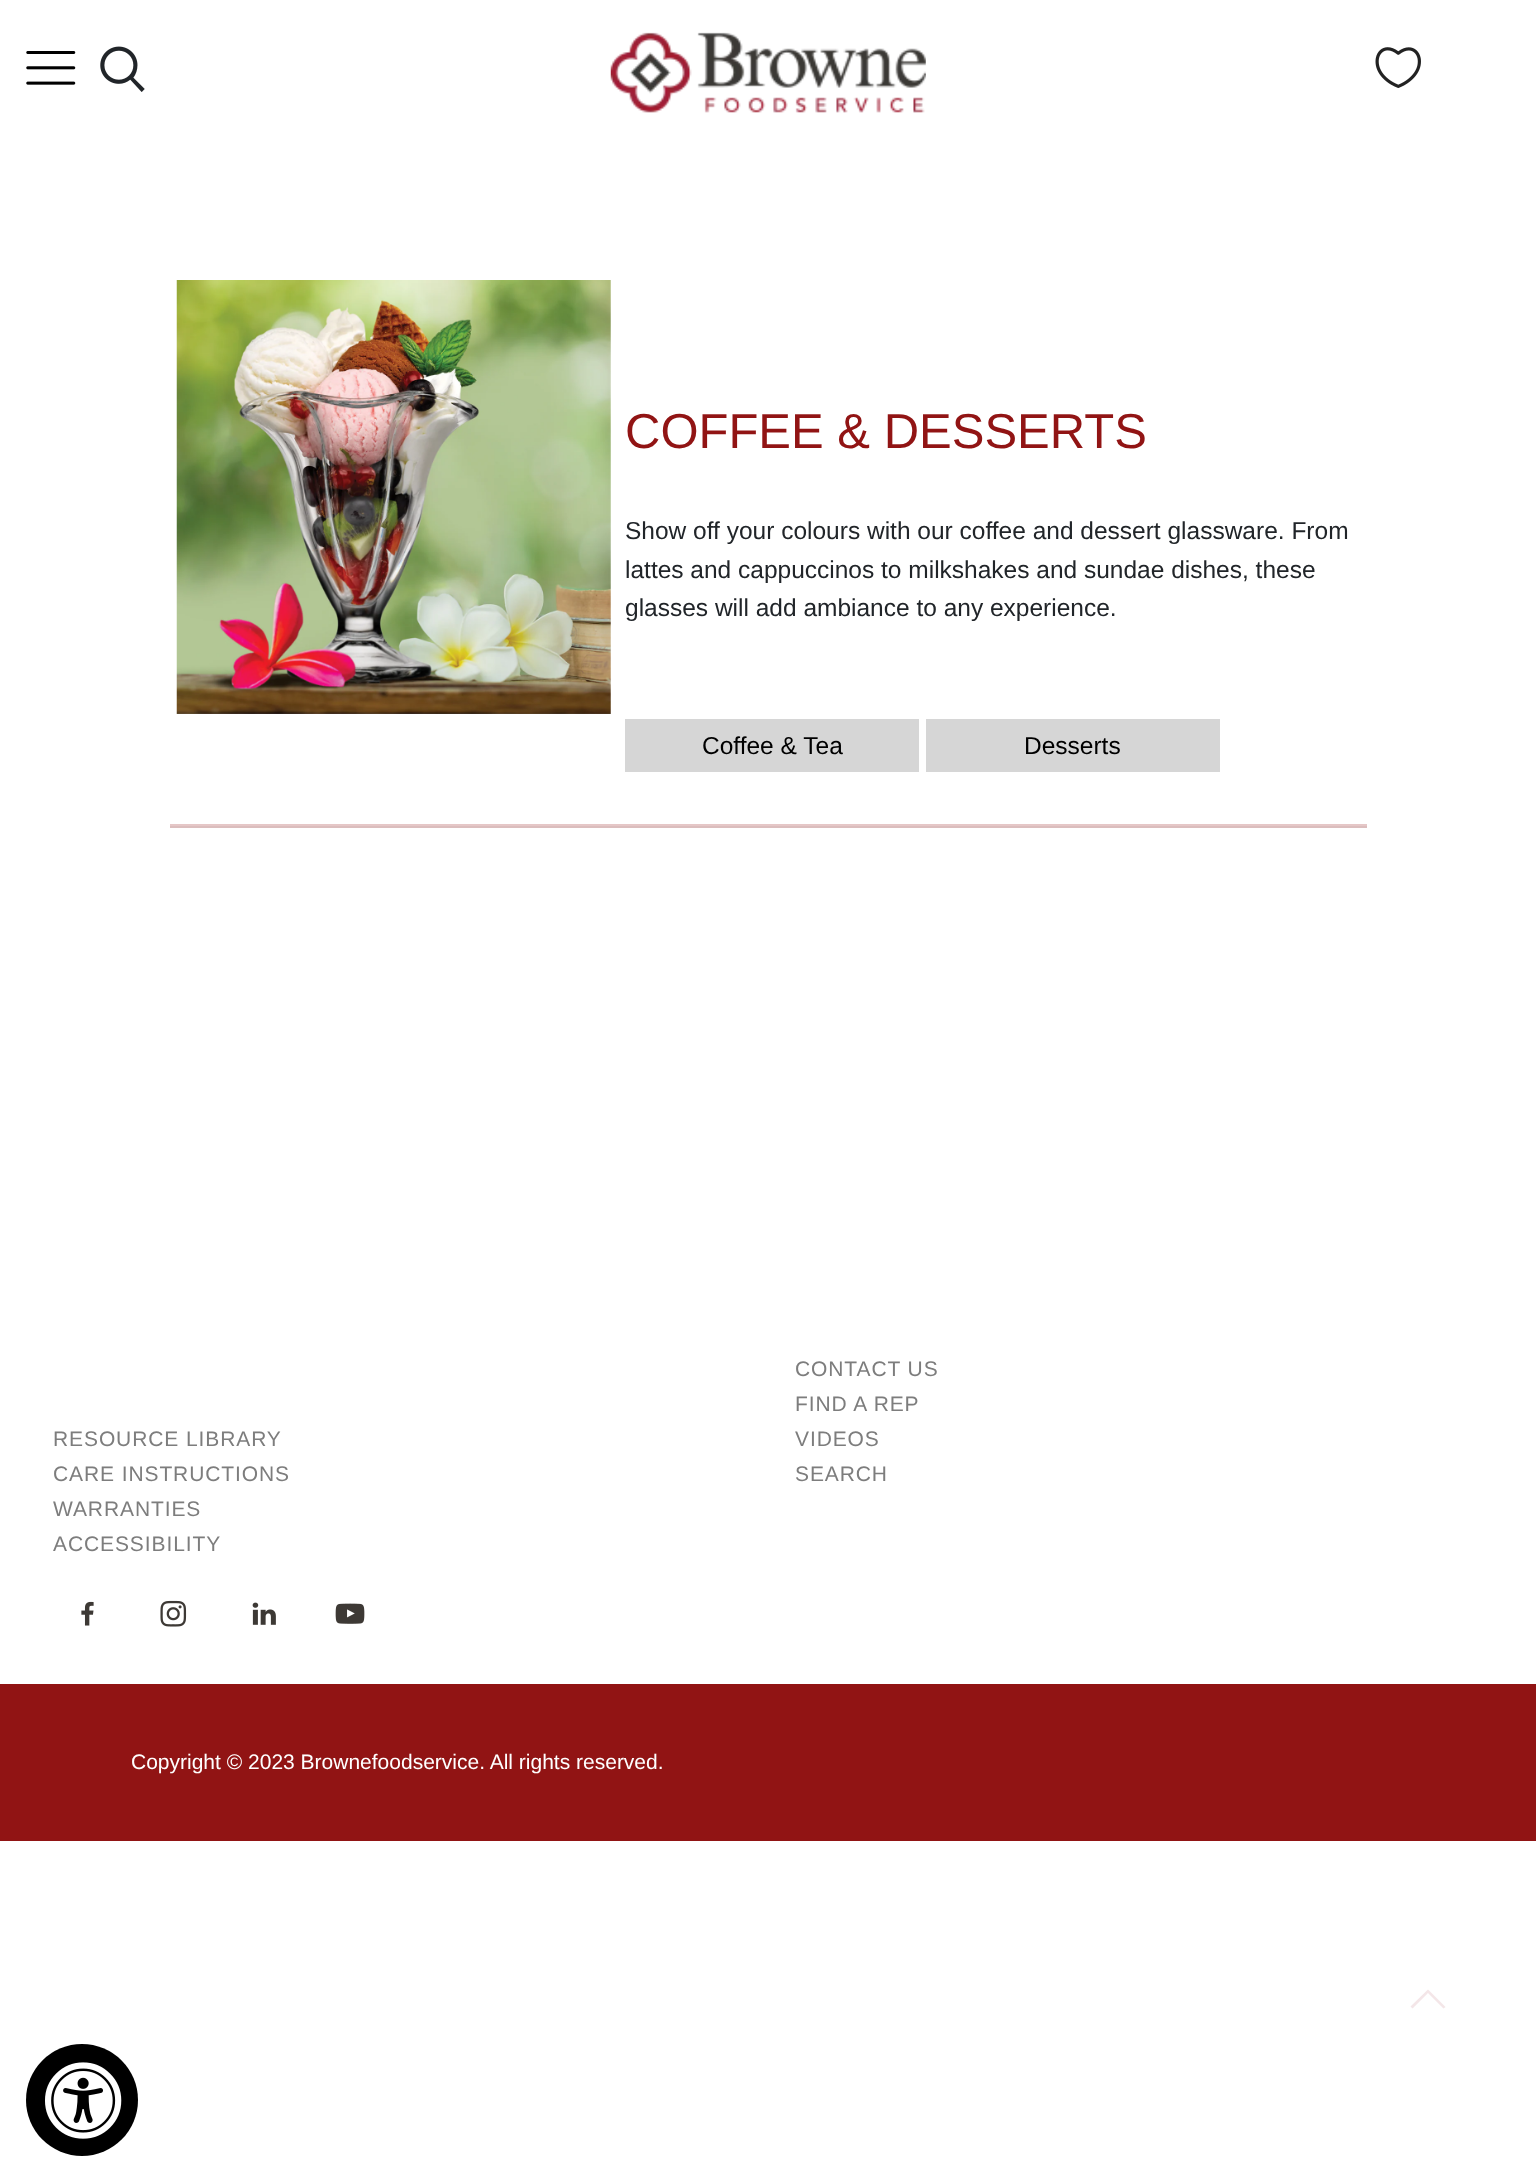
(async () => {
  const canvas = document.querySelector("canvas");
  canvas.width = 1536;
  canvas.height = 2182;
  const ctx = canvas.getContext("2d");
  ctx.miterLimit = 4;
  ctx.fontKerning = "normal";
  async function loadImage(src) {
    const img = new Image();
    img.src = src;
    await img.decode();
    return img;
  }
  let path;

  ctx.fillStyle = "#ffffff";
  ctx.fillRect(0, 0, 1536, 2182);
  ctx.drawImage(await loadImage("img/1.png"), 26, 51, 50, 34);
  ctx.drawImage(await loadImage("img/2.png"), 100, 46, 45, 46);
  ctx.drawImage(await loadImage("img/3.png"), 610, 32, 316, 81);
  ctx.drawImage(await loadImage("img/4.png"), 1375, 47, 46, 41);
  for (const [x, y, w, h, color] of [
    [165, 826, 1207, 2, "#dbbdbd"],
    [168, 824, 1202, 2, "#e5c7c7"],
    [1367, 824, 5, 4, "#ffffff"],
    [165, 824, 5, 4, "#ffffff"],
  ]) {
    ctx.fillStyle = color;
    ctx.fillRect(x, y, w, h);
  }
  ctx.drawImage(await loadImage("img/5.png"), 176, 280, 435, 434);
  ctx.fillStyle = "#d6d6d6";
  ctx.fillRect(625, 719, 294, 53);
  ctx.fillRect(926, 719, 294, 53);
  ctx.drawImage(await loadImage("img/6.png"), 81, 1601, 13, 25);
  ctx.drawImage(await loadImage("img/7.png"), 160, 1600, 27, 27);
  ctx.drawImage(await loadImage("img/8.png"), 252, 1602, 24, 23);
  ctx.drawImage(await loadImage("img/9.png"), 335, 1603, 30, 21);
  ctx.fillStyle = "#911414";
  ctx.fillRect(0, 1684, 1536, 157);
  ctx.fillStyle = "#f4e6e8";
  path = new Path2D("M1410.5 2006.5L1428 1989.5L1445.5 2007L1443.5 2008.5L1428 1993L1412.5 2008.5Z");
  ctx.fill(path);
  ctx.fillStyle = "#000000";
  ctx.beginPath();
  ctx.arc(82, 2100, 56, 0, Math.PI * 2);
  ctx.fill();
  ctx.drawImage(await loadImage("img/10.png"), 45, 2062, 77, 77);
  ctx.font = "49px Liberation Sans";
  ctx.fillStyle = "#911414";
  ctx.fillText("COFFEE & DESSERTS", 625, 448);
  ctx.font = "24.5px Liberation Sans";
  ctx.fillStyle = "#212529";
  for (const [text, x, y] of [
    ["Show off your colours with our coffee and dessert glassware. From", 625, 539],
    ["lattes and cappuccinos to milkshakes and sundae dishes, these", 625, 578],
    ["glasses will add ambiance to any experience.", 625, 616],
  ]) {
    ctx.fillText(text, x, y);
  }
  ctx.fillStyle = "#000000";
  ctx.fillText("Coffee & Tea", 702, 754);
  ctx.fillText("Desserts", 1024, 754);
  ctx.letterSpacing = "0.9px";
  ctx.font = "21px Liberation Sans";
  ctx.fillStyle = "#7d7d7d";
  for (const [text, x, y] of [
    ["CONTACT US", 795, 1376],
    ["FIND A REP", 795, 1411],
    ["RESOURCE LIBRARY", 53, 1446],
    ["CARE INSTRUCTIONS", 53, 1481],
    ["WARRANTIES", 53, 1516],
    ["ACCESSIBILITY", 53, 1551],
    ["VIDEOS", 795, 1446],
    ["SEARCH", 795, 1481],
  ]) {
    ctx.fillText(text, x, y);
  }
  ctx.letterSpacing = "0px";
  ctx.fillStyle = "#ffffff";
  ctx.fillText("Copyright © 2023 Brownefoodservice. All rights reserved.", 131, 1769);
})();
